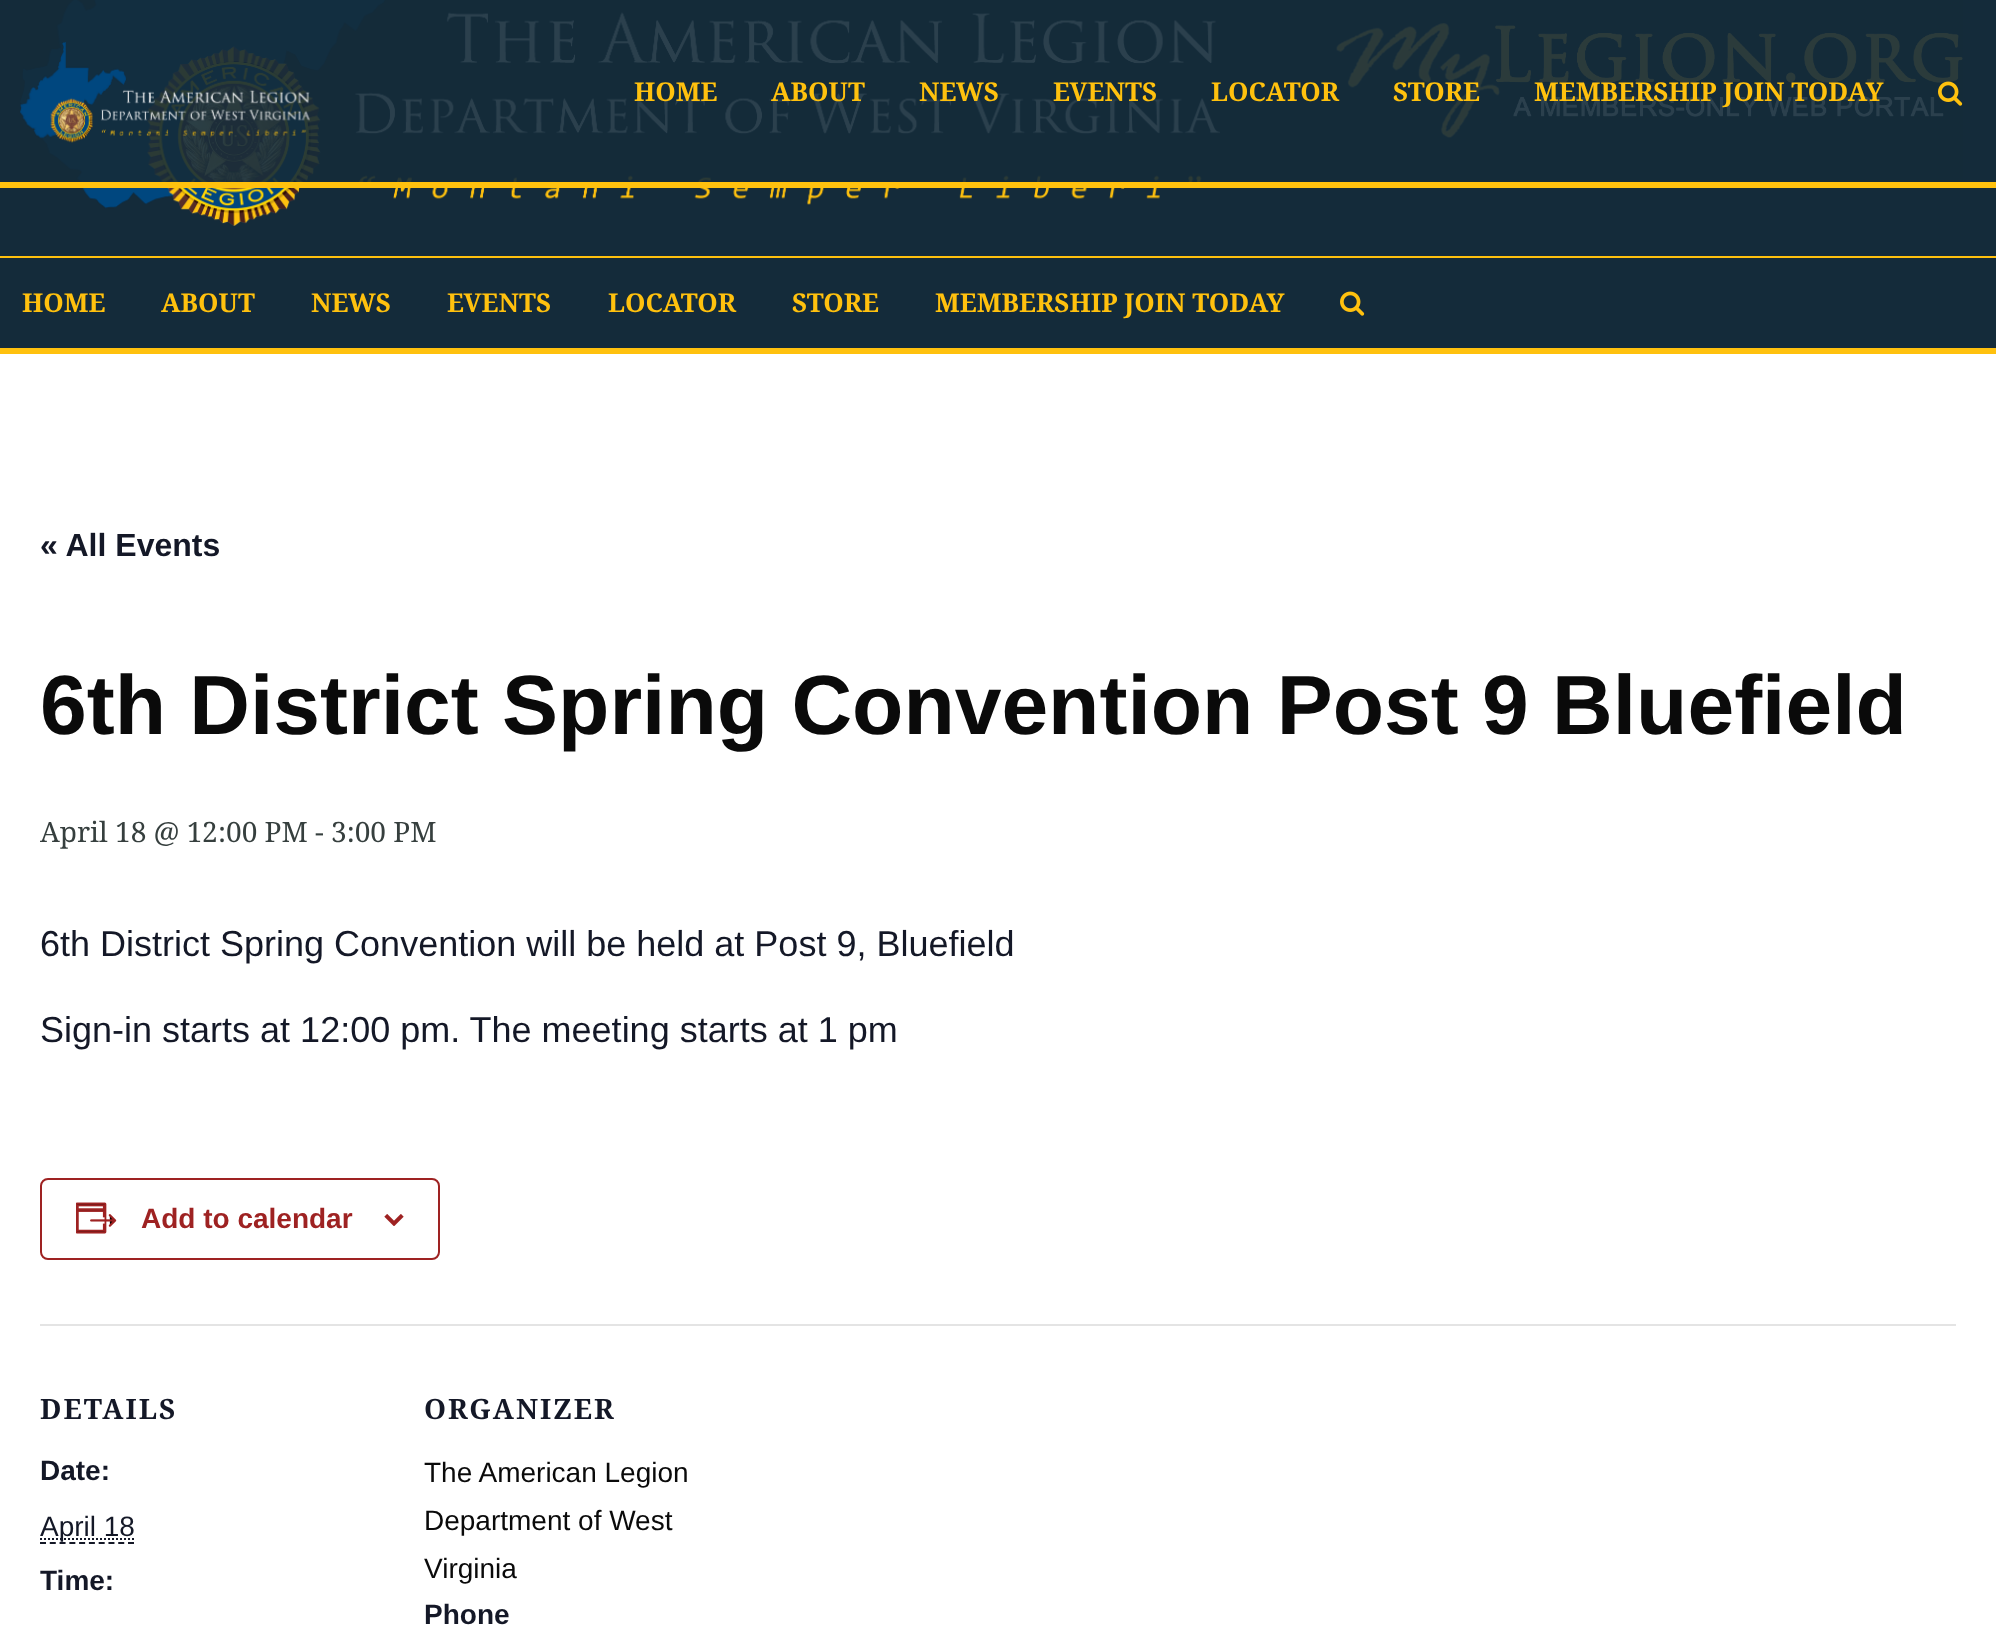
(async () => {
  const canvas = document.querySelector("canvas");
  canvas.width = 1996;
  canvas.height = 1630;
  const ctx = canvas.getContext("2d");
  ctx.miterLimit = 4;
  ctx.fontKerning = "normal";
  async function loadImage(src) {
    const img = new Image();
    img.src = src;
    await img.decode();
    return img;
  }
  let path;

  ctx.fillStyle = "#ffffff";
  ctx.fillRect(0, 0, 1996, 1630);
  ctx.fillStyle = "#142b3a";
  ctx.fillRect(0, 0, 1996, 348);
  ctx.drawImage(await loadImage("img/3.png"), 20, 0, 1200, 226);
  ctx.drawImage(await loadImage("img/4.png"), 1336, 23, 627, 115);
  ctx.fillStyle = "rgba(20, 43, 58, 0.9)";
  ctx.fillRect(20, 0, 1943, 182);
  ctx.fillStyle = "#ffc10e";
  ctx.fillRect(0, 182, 1996, 6);
  ctx.drawImage(await loadImage("img/1.png"), 20, 42, 290, 101);
  ctx.drawImage(await loadImage("img/2.png"), 1938, 81, 25, 25);
  ctx.fillRect(0, 348, 1996, 6);
  ctx.fillRect(0, 256, 1996, 2);
  ctx.drawImage(await loadImage("img/5.png"), 1340, 291, 25, 25);
  ctx.beginPath();
  ctx.roundRect(41, 1179, 398, 80, 7);
  ctx.strokeStyle = "#9e2222";
  ctx.lineWidth = 2;
  ctx.stroke();
  ctx.drawImage(await loadImage("img/6.png"), 76, 1202, 41, 32);
  ctx.drawImage(await loadImage("img/7.png"), 384, 1214, 20, 12);
  ctx.fillStyle = "#e4e4e4";
  ctx.fillRect(40, 1324, 1916, 2);
  path = new Path2D("M40 1543H134");
  ctx.strokeStyle = "#141827";
  ctx.setLineDash([6, 3.78]);
  ctx.stroke(path);
  path = new Path2D("M40 1539H135");
  ctx.setLineDash([2, 2]);
  ctx.stroke(path);
  ctx.font = "bold 26px Droid Serif";
  ctx.fillStyle = "#ffc10e";
  for (const [text, x, y] of [
    ["HOME", 634, 101],
    ["ABOUT", 771, 101],
    ["NEWS", 919, 101],
    ["EVENTS", 1053, 101],
    ["LOCATOR", 1211, 101],
    ["STORE", 1393, 101],
    ["MEMBERSHIP JOIN TODAY", 1534, 101],
    ["HOME", 22, 312],
    ["ABOUT", 161, 312],
    ["NEWS", 311, 312],
    ["EVENTS", 447, 312],
    ["LOCATOR", 608, 312],
    ["STORE", 792, 312],
    ["MEMBERSHIP JOIN TODAY", 935, 312],
  ]) {
    ctx.fillText(text, x, y);
  }
  ctx.font = "bold 32px Liberation Sans";
  ctx.fillStyle = "#141827";
  ctx.fillText("« All Events", 40, 556);
  ctx.font = "bold 84px Liberation Sans";
  ctx.fillStyle = "#0a0a0a";
  ctx.fillText("6th District Spring Convention Post 9 Bluefield", 40, 734);
  ctx.font = "28px Droid Serif";
  ctx.fillStyle = "#363f3e";
  ctx.fillText("April 18 @ 12:00 PM - 3:00 PM", 40, 842);
  ctx.font = "36px Liberation Sans";
  ctx.fillStyle = "#141827";
  ctx.fillText("6th District Spring Convention will be held at Post 9, Bluefield", 40, 956);
  ctx.fillText("Sign-in starts at 12:00 pm. The meeting starts at 1 pm", 40, 1042);
  ctx.font = "bold 28px Liberation Sans";
  ctx.fillStyle = "#9e2222";
  ctx.fillText("Add to calendar", 141, 1228);
  ctx.letterSpacing = "2px";
  ctx.font = "bold 28px Droid Serif";
  ctx.fillStyle = "#141827";
  ctx.fillText("DETAILS", 40, 1419);
  ctx.letterSpacing = "0px";
  ctx.font = "bold 28px Liberation Sans";
  ctx.fillText("Date:", 40, 1480);
  ctx.font = "28px Liberation Sans";
  ctx.fillText("April 18", 40, 1536);
  ctx.font = "bold 28px Liberation Sans";
  ctx.fillText("Time:", 40, 1590);
  ctx.letterSpacing = "2px";
  ctx.font = "bold 28px Droid Serif";
  ctx.fillText("ORGANIZER", 424, 1419);
  ctx.letterSpacing = "0px";
  ctx.font = "28px Liberation Sans";
  ctx.fillStyle = "#0a0a0a";
  for (const [text, x, y] of [
    ["The American Legion", 424, 1482],
    ["Department of West", 424, 1530],
    ["Virginia", 424, 1578],
  ]) {
    ctx.fillText(text, x, y);
  }
  ctx.font = "bold 28px Liberation Sans";
  ctx.fillStyle = "#141827";
  ctx.fillText("Phone", 424, 1624);
})();
